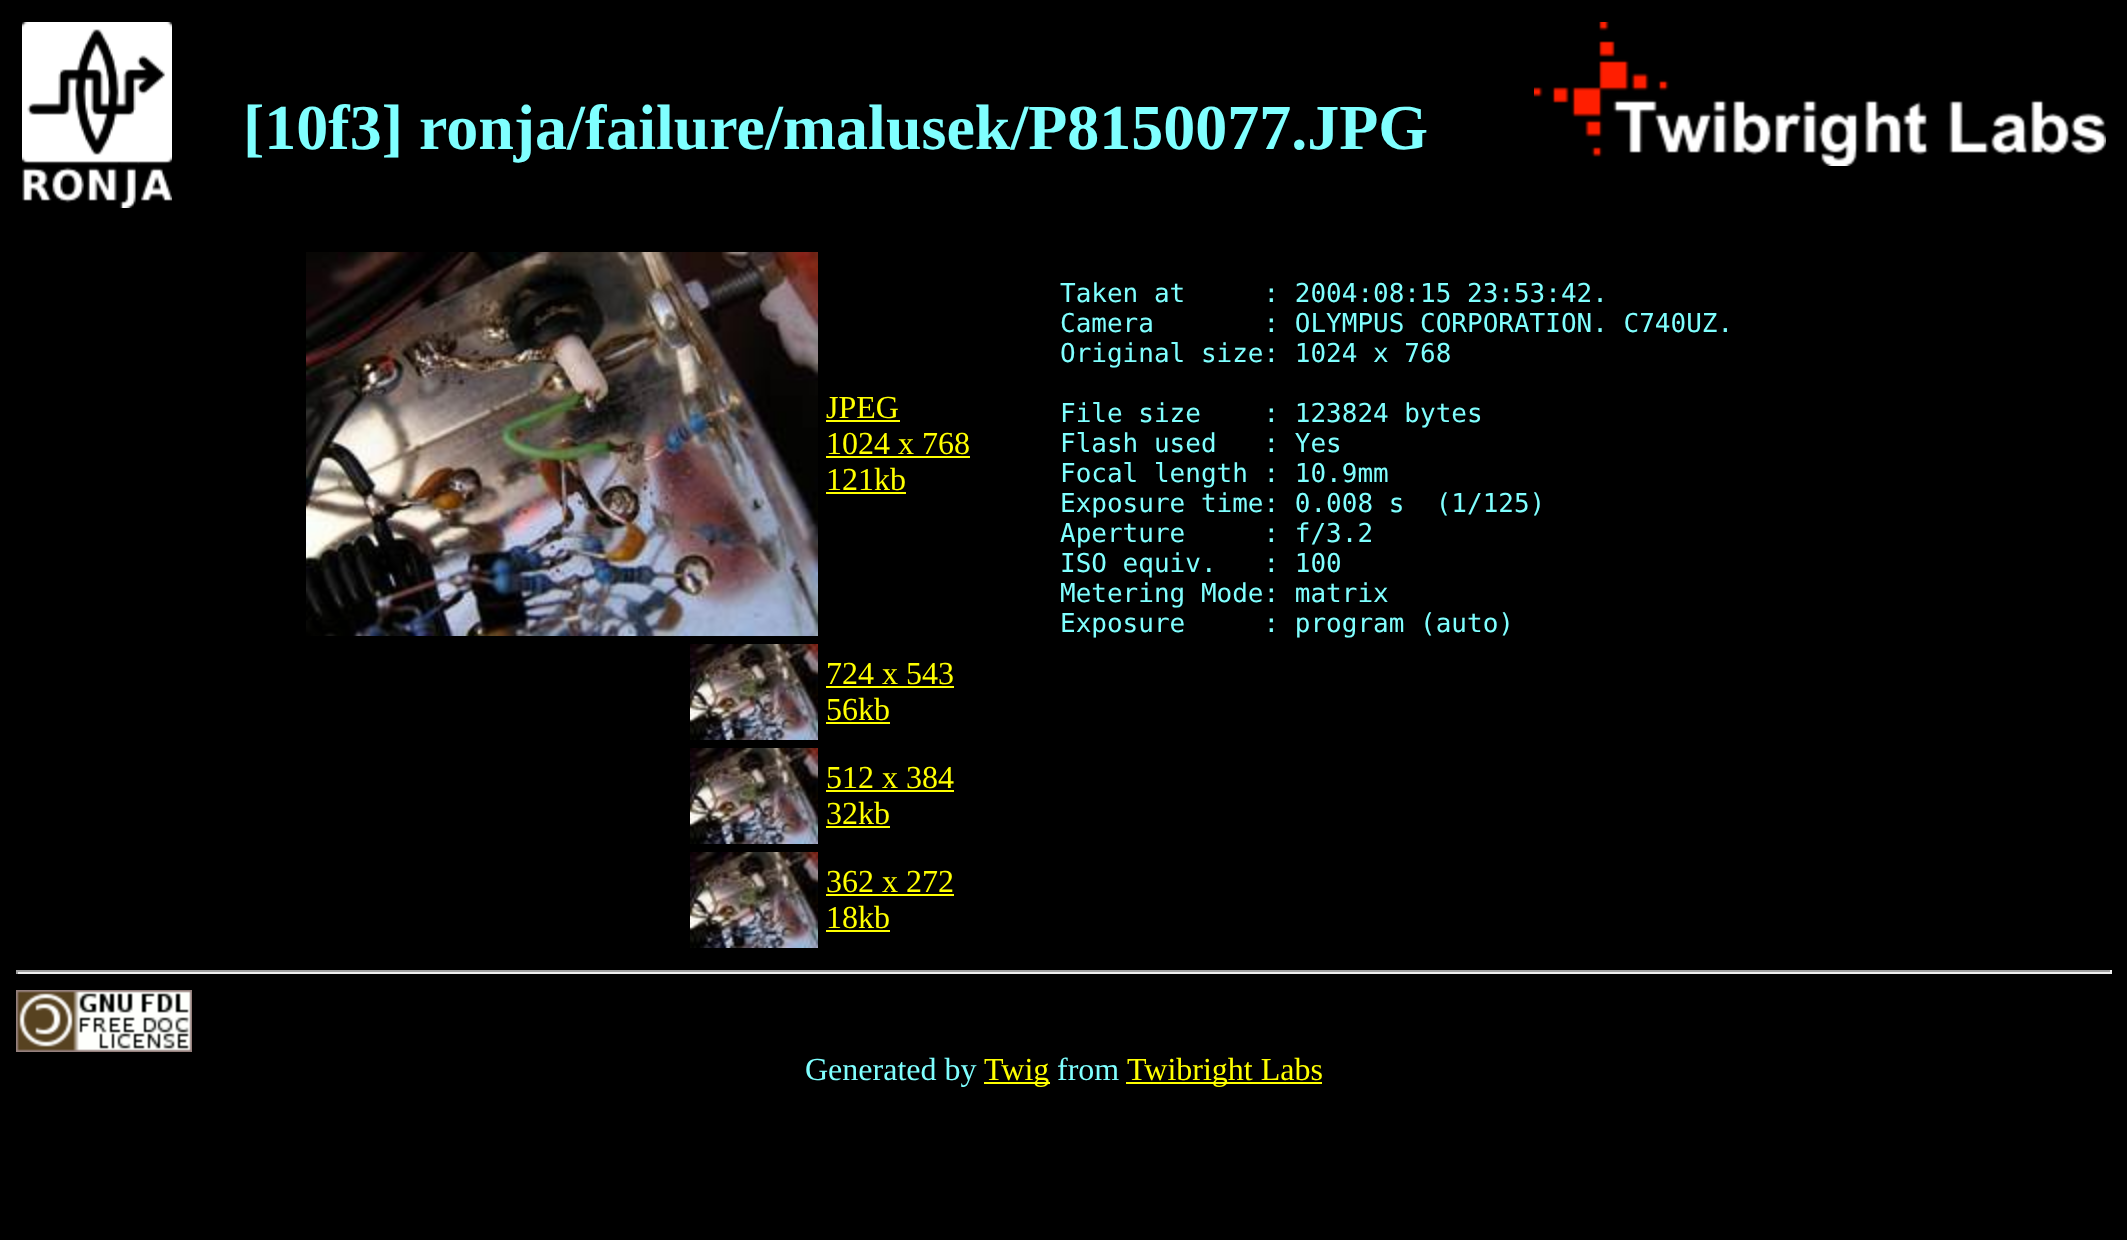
async function draw(canvas) {
  canvas.width = 2127
  canvas.height = 1240
  const ctx = canvas.getContext('2d')
  ctx.miterLimit = 4
  ctx.fontKerning = 'normal'
  async function loadImage(src) {
    const img = new Image()
    img.src = src
    await img.decode()
    return img
  }

  ctx.fillStyle = '#000'
  ctx.fillRect(0, 0, 2127, 1240)
  ctx.drawImage(await loadImage('image0.png'), 22, 22, 150, 186)
  ctx.font = 'bold 64px Liberation Serif'
  ctx.fillStyle = '#7fffff'
  ctx.fillText('[10f3] ronja/failure/malusek/P8150077.JPG', 243, 149)
  ctx.drawImage(await loadImage('image1.png'), 1534, 22, 572, 144)
  ctx.drawImage(await loadImage('image2.png'), 306, 252, 512, 384)
  ctx.font = '32px Liberation Serif'
  ctx.fillStyle = '#ff0'
  ctx.fillText('JPEG', 826, 418)
  ctx.fillRect(826, 420, 74, 2)
  ctx.fillText('1024 x 768', 826, 454)
  ctx.fillRect(826, 456, 144, 2)
  ctx.fillText('121kb', 826, 490)
  ctx.fillRect(826, 492, 80, 2)
  ctx.font = '26px DejaVu Sans Mono'
  ctx.fillStyle = '#7fffff'
  ctx.fillText('Taken at     : 2004:08:15 23:53:42.', 1060, 302)
  ctx.fillText('Camera       : OLYMPUS CORPORATION. C740UZ.', 1060, 332)
  ctx.fillText('Original size: 1024 x 768', 1060, 362)
  ctx.fillText('File size    : 123824 bytes', 1060, 422)
  ctx.fillText('Flash used   : Yes', 1060, 452)
  ctx.fillText('Focal length : 10.9mm', 1060, 482)
  ctx.fillText('Exposure time: 0.008 s  (1/125)', 1060, 512)
  ctx.fillText('Aperture     : f/3.2', 1060, 542)
  ctx.fillText('ISO equiv.   : 100', 1060, 572)
  ctx.fillText('Metering Mode: matrix', 1060, 602)
  ctx.fillText('Exposure     : program (auto)', 1060, 632)
  ctx.drawImage(await loadImage('image3.png'), 690, 644, 128, 96)
  ctx.font = '32px Liberation Serif'
  ctx.fillStyle = '#ff0'
  ctx.fillText('724 x 543', 826, 684)
  ctx.fillRect(826, 686, 128, 2)
  ctx.fillText('56kb', 826, 720)
  ctx.fillRect(826, 722, 64, 2)
  ctx.drawImage(await loadImage('image3.png'), 690, 748, 128, 96)
  ctx.fillText('512 x 384', 826, 788)
  ctx.fillRect(826, 790, 128, 2)
  ctx.fillText('32kb', 826, 824)
  ctx.fillRect(826, 826, 64, 2)
  ctx.drawImage(await loadImage('image3.png'), 690, 852, 128, 96)
  ctx.fillText('362 x 272', 826, 892)
  ctx.fillRect(826, 894, 128, 2)
  ctx.fillText('18kb', 826, 928)
  ctx.fillRect(826, 930, 64, 2)
  ctx.fillStyle = '#9f9f9f'
  ctx.fillRect(16, 970, 2096, 2)
  ctx.fillStyle = '#eee'
  ctx.fillRect(2110, 970, 2, 4)
  ctx.fillRect(16, 972, 2096, 2)
  ctx.fillStyle = '#9f9f9f'
  ctx.fillRect(16, 970, 2, 4)
  ctx.drawImage(await loadImage('image4.png'), 16, 990, 176, 62)
  ctx.fillStyle = '#7fffff'
  ctx.fillText('Generated by', 805, 1080)
  ctx.fillStyle = '#ff0'
  ctx.fillRect(984, 1082, 66, 2)
  ctx.fillText('Twig', 984, 1080)
  ctx.fillStyle = '#7fffff'
  ctx.fillText('from', 1057, 1080)
  ctx.fillStyle = '#ff0'
  ctx.fillRect(1126, 1082, 196, 2)
  ctx.fillText('Twibright Labs', 1127, 1080)
}

draw(document.querySelector('canvas'))
